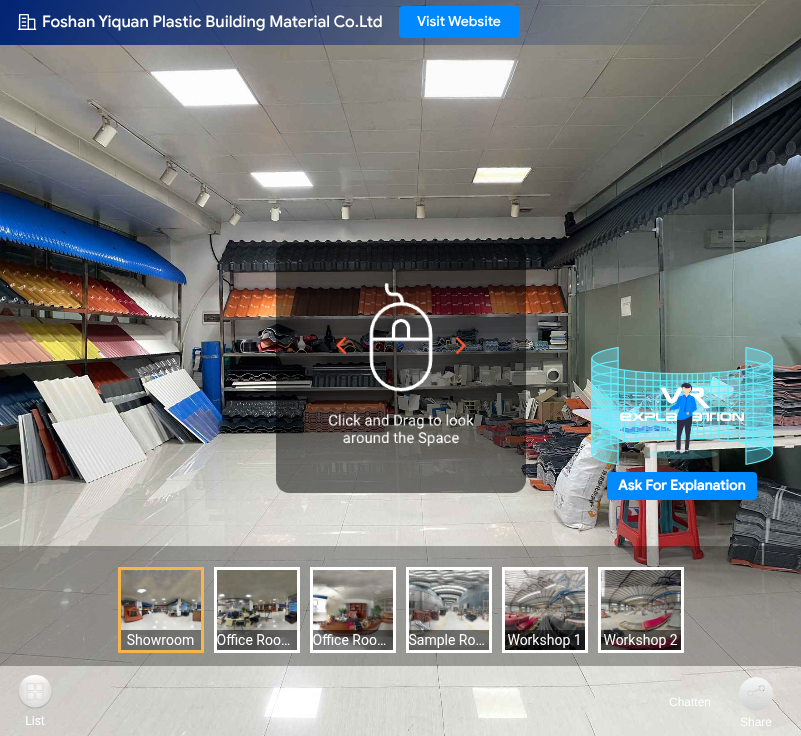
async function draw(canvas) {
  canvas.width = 801
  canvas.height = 736
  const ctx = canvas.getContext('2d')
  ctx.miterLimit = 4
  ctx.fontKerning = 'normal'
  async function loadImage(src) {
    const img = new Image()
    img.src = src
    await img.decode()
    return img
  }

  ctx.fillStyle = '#fff'
  ctx.fillRect(0, 0, 801, 736)
  ctx.drawImage(await loadImage('image0.png'), 0, 0, 801, 736)
  ctx.drawImage(await loadImage('image1.png'), 18, 14, 19, 16)
  ctx.font = '500 16px Google Sans'
  ctx.fillText('Foshan Yiquan Plastic Building Material Co.Ltd', 42, 27)
  ctx.fillStyle = '#0089ff'
  ctx.beginPath()
  ctx.roundRect(399, 6, 120, 32, 4)
  ctx.fill()
  ctx.font = '500 14px Google Sans'
  ctx.fillStyle = '#fff'
  ctx.fillText('Visit Website', 417, 26)
  ctx.drawImage(await loadImage('image2.png'), 591, 346, 182, 119)
  ctx.fillStyle = '#008aff'
  ctx.beginPath()
  ctx.roundRect(607, 472, 150, 28, 4)
  ctx.fill()
  ctx.font = 'bold 14px Google Sans'
  ctx.fillStyle = '#fff'
  ctx.fillText('Ask For Explanation', 618, 490)
  ctx.font = '12px Liberation Sans'
  ctx.fillText('Chatten', 669, 706)
  ctx.drawImage(await loadImage('image3.png'), 739, 677, 34, 34)
  ctx.fillText('Share', 740, 726)
}

draw(document.querySelector('canvas'))
